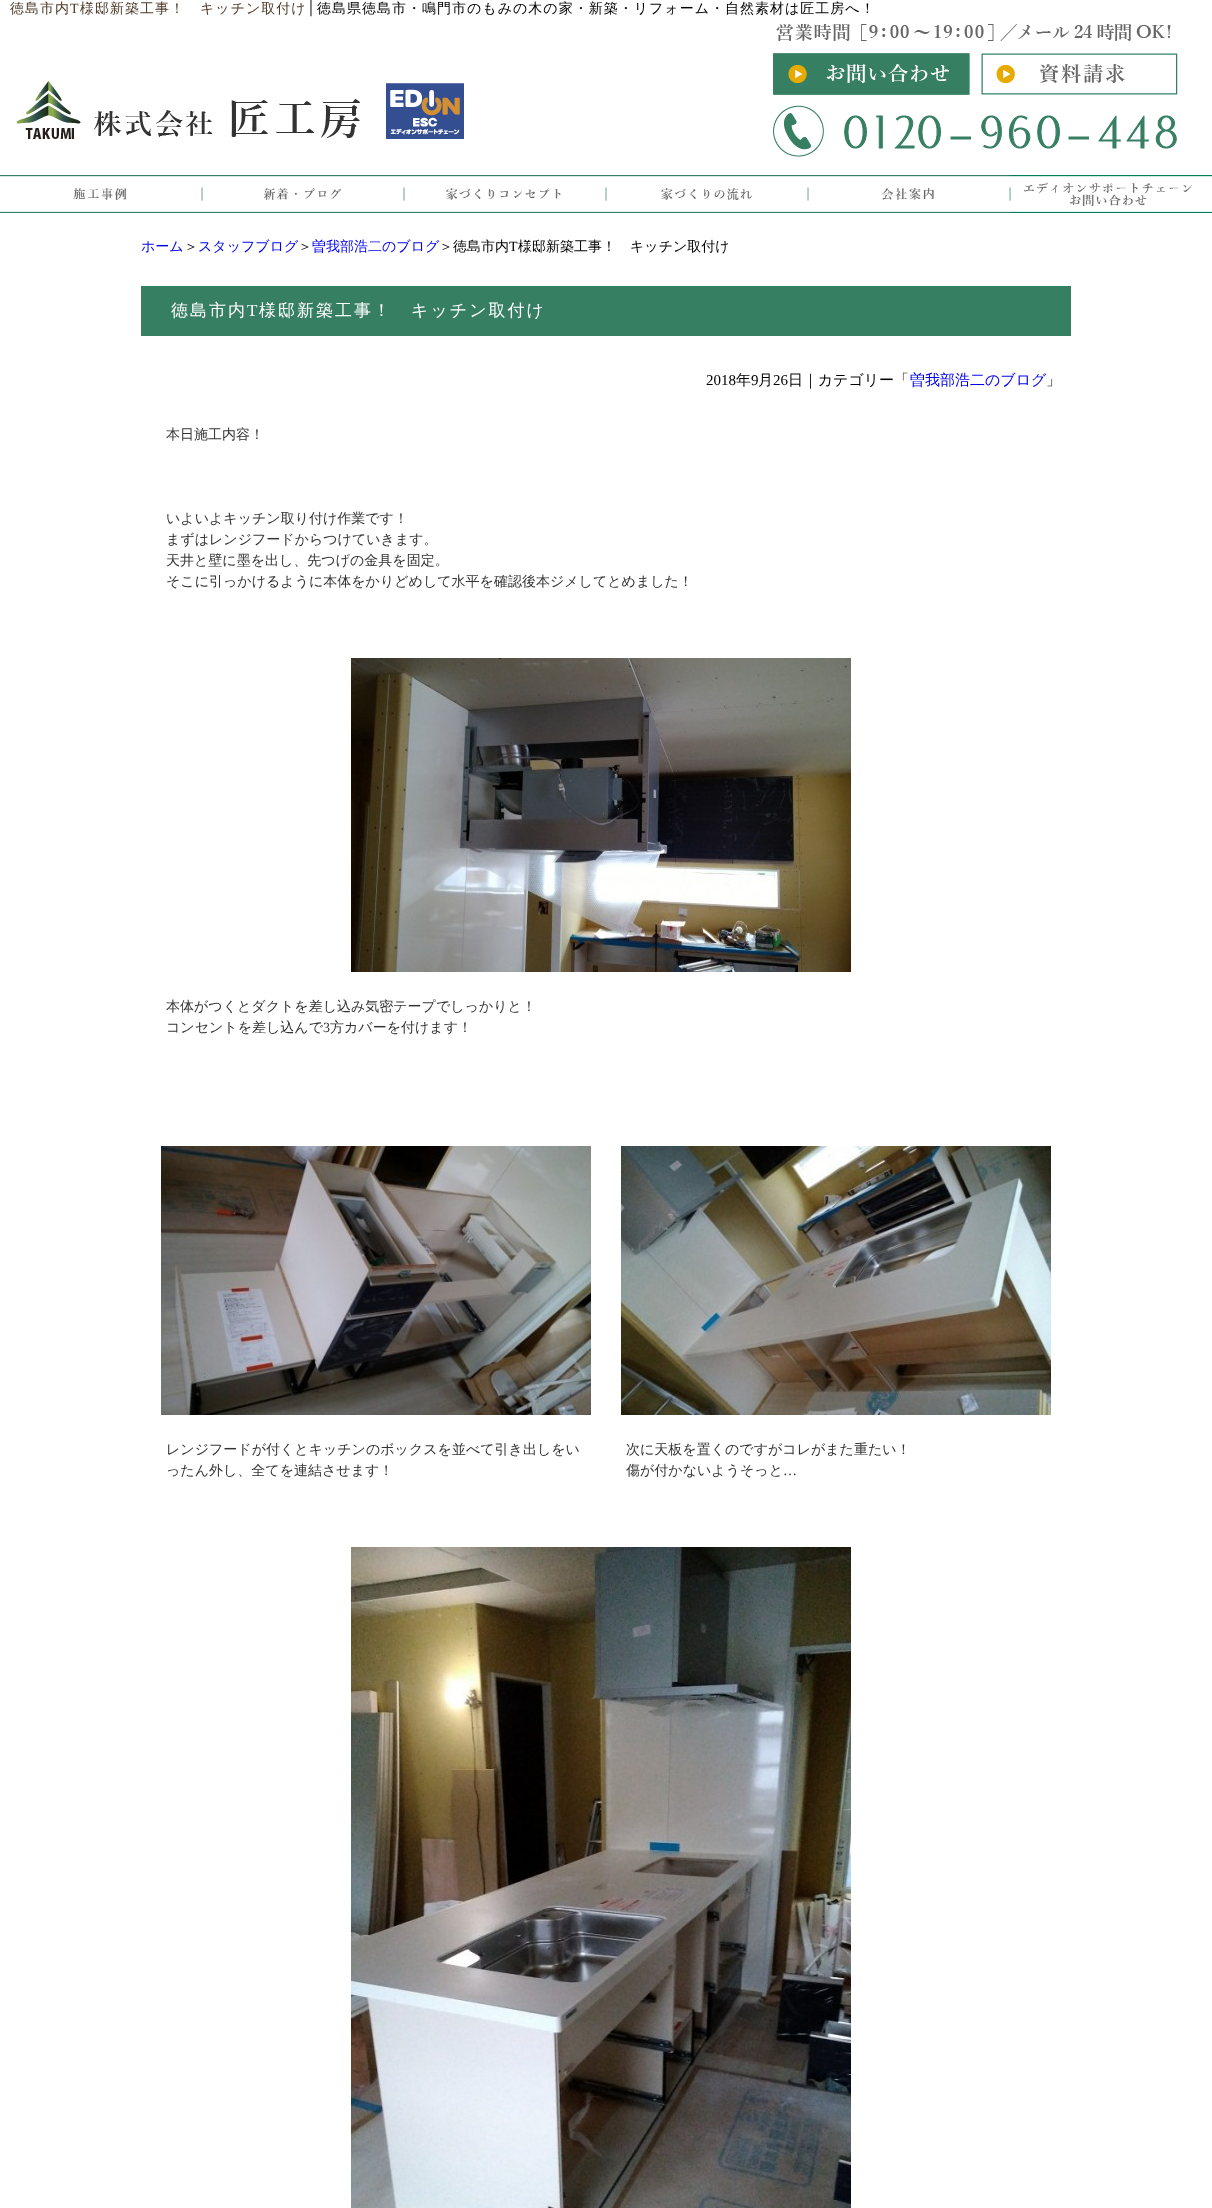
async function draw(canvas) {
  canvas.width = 1212
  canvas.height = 2208
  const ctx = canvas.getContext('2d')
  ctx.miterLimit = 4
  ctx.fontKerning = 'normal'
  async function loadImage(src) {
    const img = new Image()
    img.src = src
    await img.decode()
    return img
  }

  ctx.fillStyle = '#fff'
  ctx.fillRect(0, 0, 1212, 2208)
  ctx.letterSpacing = '1px'
  ctx.font = '500 14px WenQuanYi Zen Hei'
  ctx.fillStyle = '#4c3a2a'
  ctx.fillText('徳島市内', 10, 13)
  ctx.font = '14px Liberation Serif'
  ctx.fillText('T', 70, 13)
  ctx.font = '500 14px WenQuanYi Zen Hei'
  ctx.fillText('様邸新築工事！　キッチン取付け', 80, 13)
  ctx.font = '14px Liberation Serif'
  ctx.fillStyle = '#000'
  ctx.fillText('│', 306, 12)
  ctx.font = '500 14px WenQuanYi Zen Hei'
  ctx.fillText('徳島県徳島市・鳴門市のもみの木の家・新築・リフォーム・自然素材は匠工房へ！', 317, 13)
  ctx.drawImage(await loadImage('image0.png'), 16, 81, 448, 58)
  ctx.drawImage(await loadImage('image1.png'), 773, 23, 405, 134)
  ctx.drawImage(await loadImage('image2.png'), 0, 175, 202, 38)
  ctx.drawImage(await loadImage('image3.png'), 202, 175, 202, 38)
  ctx.drawImage(await loadImage('image4.png'), 404, 175, 202, 38)
  ctx.drawImage(await loadImage('image5.png'), 606, 175, 202, 38)
  ctx.drawImage(await loadImage('image6.png'), 808, 175, 202, 38)
  ctx.drawImage(await loadImage('image7.png'), 1010, 175, 202, 38)
  ctx.letterSpacing = '0px'
  ctx.fillStyle = '#00e'
  ctx.fillText('ホーム', 141, 251)
  ctx.fillStyle = '#000'
  ctx.fillText('＞', 184, 251)
  ctx.fillStyle = '#00e'
  ctx.fillText('スタッフブログ', 198, 251)
  ctx.fillStyle = '#000'
  ctx.fillText('＞', 298, 251)
  ctx.fillStyle = '#00e'
  ctx.fillText('曽我部浩二のブログ', 312, 251)
  ctx.fillStyle = '#000'
  ctx.fillText('＞徳島市内', 439, 251)
  ctx.font = '14px Liberation Serif'
  ctx.fillText('T', 509, 251)
  ctx.font = '500 14px WenQuanYi Zen Hei'
  ctx.fillText('様邸新築工事！　キッチン取付け', 518, 251)
  ctx.fillStyle = '#377f63'
  ctx.fillRect(141, 286, 930, 50)
  ctx.letterSpacing = '2px'
  ctx.font = '500 17px WenQuanYi Zen Hei'
  ctx.fillStyle = '#fff'
  ctx.fillText('徳島市内', 171, 316)
  ctx.font = '17px Liberation Serif'
  ctx.fillText('T', 247, 316)
  ctx.font = '500 17px WenQuanYi Zen Hei'
  ctx.fillText('様邸新築工事！　キッチン取付け', 259, 316)
  ctx.letterSpacing = '0px'
  ctx.font = '15px Liberation Serif'
  ctx.fillStyle = '#000'
  ctx.fillText('2018', 706, 385)
  ctx.font = '500 15px WenQuanYi Zen Hei'
  ctx.fillText('年', 736, 385)
  ctx.font = '15px Liberation Serif'
  ctx.fillText('9', 751, 385)
  ctx.font = '500 15px WenQuanYi Zen Hei'
  ctx.fillText('月', 758, 385)
  ctx.font = '15px Liberation Serif'
  ctx.fillText('26', 773, 385)
  ctx.font = '500 15px WenQuanYi Zen Hei'
  ctx.fillText('日｜カテゴリー「', 788, 385)
  ctx.fillStyle = '#00e'
  ctx.fillText('曽我部浩二のブログ', 910, 385)
  ctx.fillStyle = '#000'
  ctx.fillText('」', 1046, 385)
  ctx.font = '500 14px WenQuanYi Zen Hei'
  ctx.fillStyle = '#333'
  ctx.fillText('本日施工内容！', 166, 439)
  ctx.fillText('いよいよキッチン取り付け作業です！', 166, 523)
  ctx.fillText('まずはレンジフードからつけていきます。', 166, 544)
  ctx.fillText('天井と壁に墨を出し、先つげの金具を固定。', 166, 565)
  ctx.fillText('そこに引っかけるように本体をかりどめして水平を確認後本ジメしてとめました！', 166, 586)
  ctx.drawImage(await loadImage('image8.png'), 351, 658, 500, 314)
  ctx.fillText('本体がつくとダクトを差し込み気密テープでしっかりと！', 166, 1011)
  ctx.fillText('コンセントを差し込んで', 166, 1032)
  ctx.font = '14px Liberation Serif'
  ctx.fillText('3', 323, 1032)
  ctx.font = '500 14px WenQuanYi Zen Hei'
  ctx.fillText('方カバーを付けます！', 330, 1032)
  ctx.drawImage(await loadImage('image9.png'), 161, 1146, 430, 269)
  ctx.fillText('レンジフードが付くとキッチンのボックスを並べて引き出しをい', 166, 1454)
  ctx.fillText('ったん外し、全てを連結させます！', 166, 1475)
  ctx.drawImage(await loadImage('image10.png'), 621, 1146, 430, 269)
  ctx.fillText('次に天板を置くのですがコレがまた重たい！', 626, 1454)
  ctx.fillText('傷が付かないようそっと', 626, 1475)
  ctx.font = '14px Liberation Serif'
  ctx.fillText('…', 783, 1475)
  ctx.drawImage(await loadImage('image11.png'), 351, 1547, 500, 661)
}

draw(document.querySelector('canvas'))
